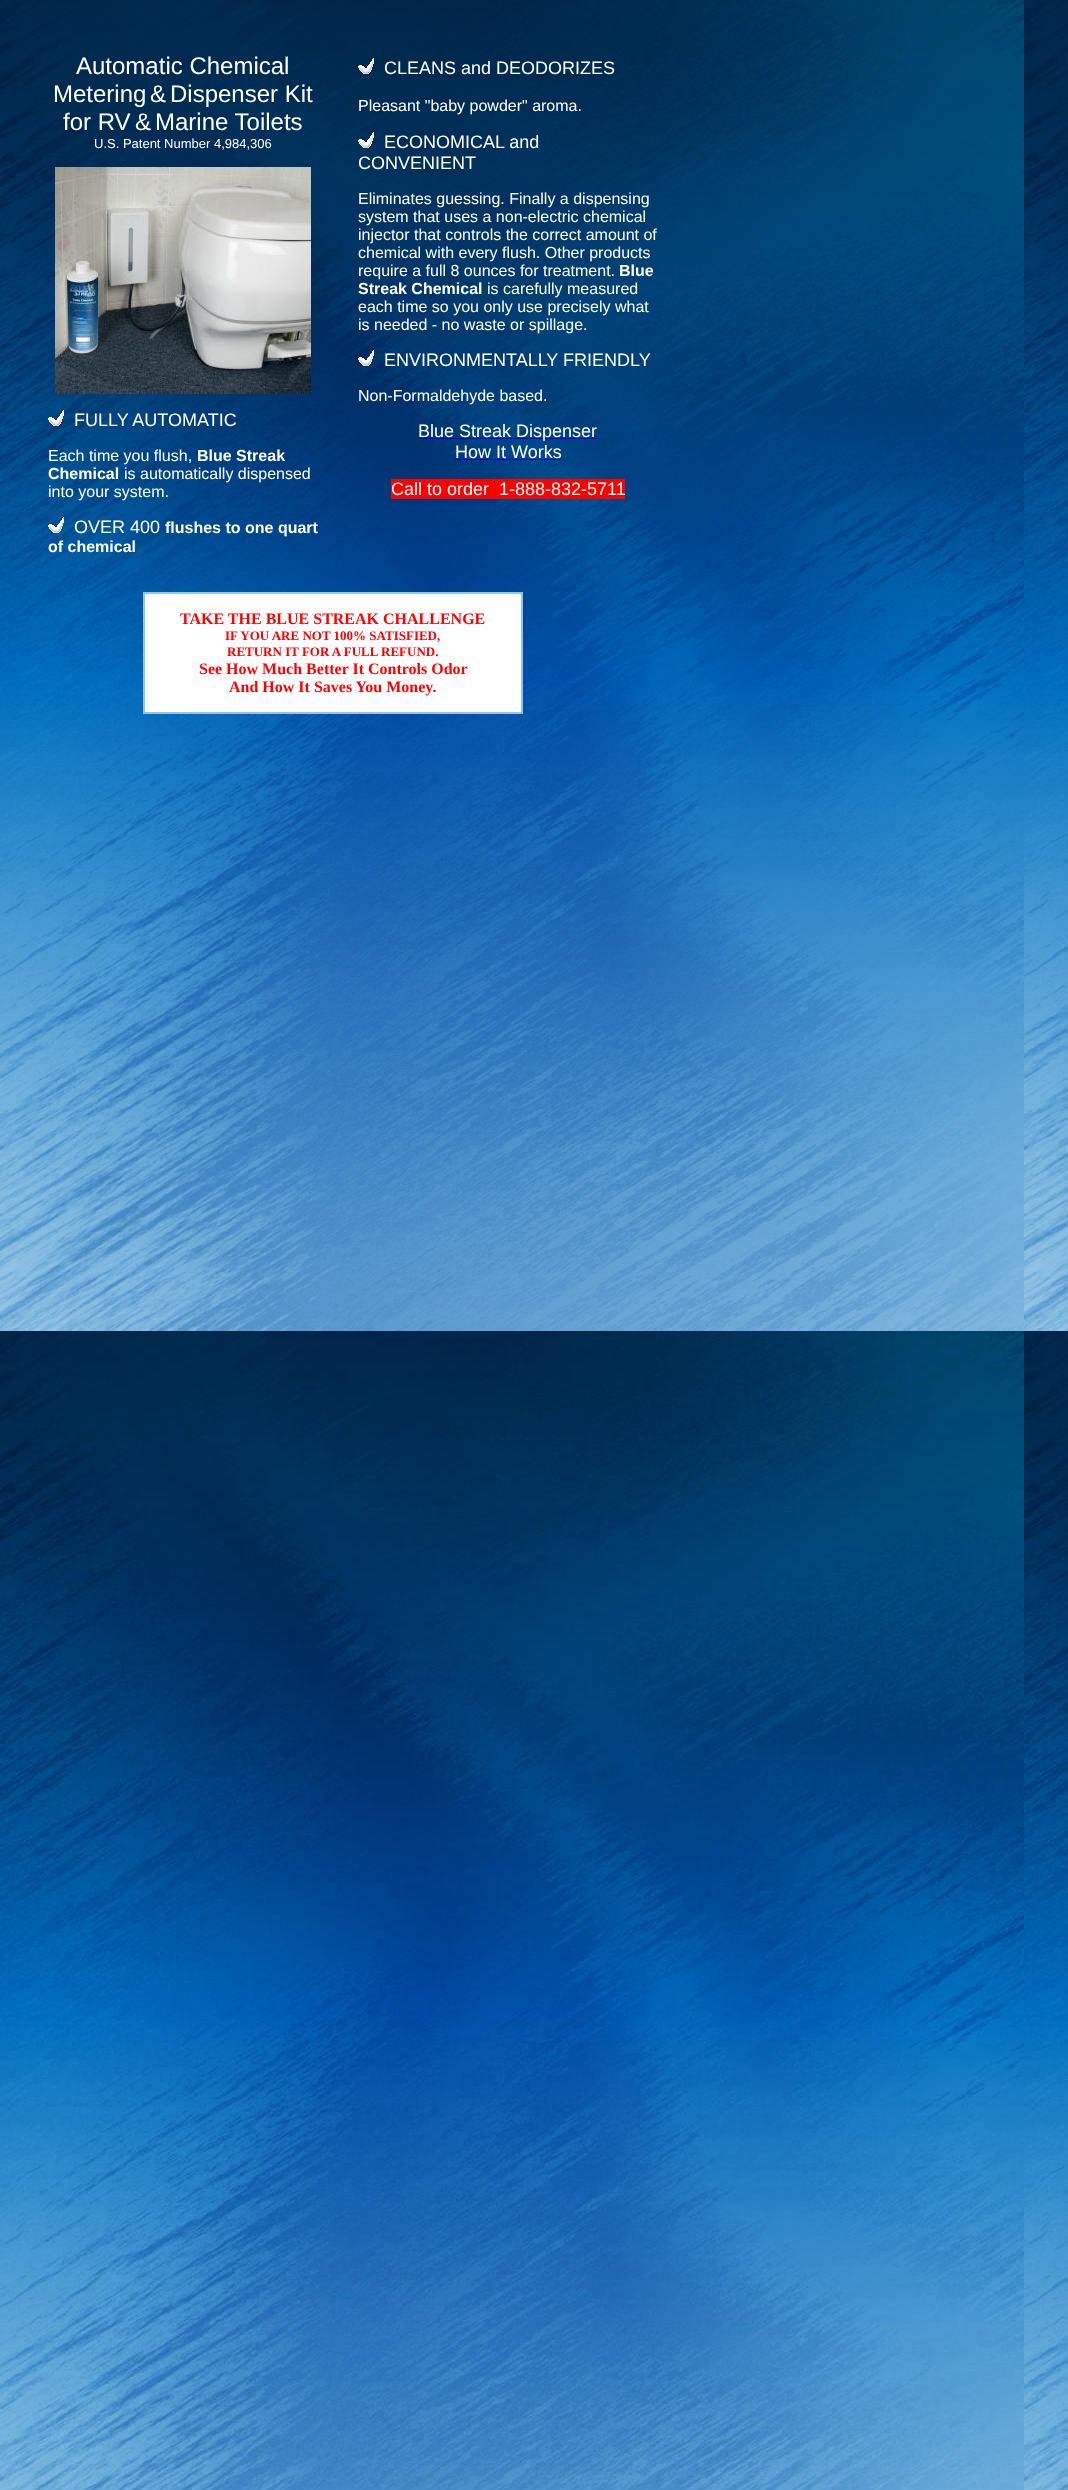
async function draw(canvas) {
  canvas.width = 1068
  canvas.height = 2490
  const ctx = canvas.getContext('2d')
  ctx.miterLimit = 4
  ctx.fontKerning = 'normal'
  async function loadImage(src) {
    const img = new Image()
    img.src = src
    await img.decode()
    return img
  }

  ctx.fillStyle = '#fff'
  ctx.fillRect(0, 0, 1068, 2490)
  ctx.drawImage(await loadImage('image0.png'), 0, 0, 1068, 2490)
  ctx.font = '24px Liberation Sans'
  ctx.fillText('Automatic Chemical', 76, 74)
  ctx.fillText('Metering', 53, 102)
  ctx.fillText('&', 150, 102)
  ctx.fillText('Dispenser Kit', 170, 102)
  ctx.fillText('for RV', 63, 130)
  ctx.fillText('&', 135, 130)
  ctx.fillText('Marine Toilets', 155, 130)
  ctx.font = '13px Liberation Sans'
  ctx.fillText('U.S. Patent Number 4,984,306', 94, 148)
  ctx.drawImage(await loadImage('image1.png'), 55, 167, 256, 227)
  ctx.drawImage(await loadImage('image2.png'), 48, 410, 16, 16)
  ctx.font = '18px Liberation Sans'
  ctx.fillText('FULLY AUTOMATIC', 74, 426)
  ctx.font = '16px Liberation Sans'
  ctx.fillText('Each time you flush,', 48, 461)
  ctx.font = 'bold 16px Liberation Sans'
  ctx.fillText('Blue Streak', 197, 461)
  ctx.fillText('Chemical', 48, 479)
  ctx.font = '16px Liberation Sans'
  ctx.fillText('is automatically dispensed', 124, 479)
  ctx.fillText('into your system.', 48, 497)
  ctx.drawImage(await loadImage('image3.png'), 48, 517, 16, 16)
  ctx.font = '18px Liberation Sans'
  ctx.fillText('OVER 400', 74, 533)
  ctx.font = 'bold 16px Liberation Sans'
  ctx.fillText('flushes to one quart', 165, 533)
  ctx.fillText('of chemical', 48, 552)
  ctx.drawImage(await loadImage('image4.png'), 358, 58, 16, 16)
  ctx.font = '18px Liberation Sans'
  ctx.fillText('CLEANS and DEODORIZES', 384, 74)
  ctx.font = '16px Liberation Sans'
  ctx.fillText('Pleasant "baby powder" aroma.', 358, 111)
  ctx.drawImage(await loadImage('image5.png'), 358, 132, 16, 16)
  ctx.font = '18px Liberation Sans'
  ctx.fillText('ECONOMICAL and', 384, 148)
  ctx.fillText('CONVENIENT', 358, 169)
  ctx.font = '16px Liberation Sans'
  ctx.fillText('Eliminates guessing. Finally a dispensing', 358, 204)
  ctx.fillText('system that uses a non-electric chemical', 358, 222)
  ctx.fillText('injector that controls the correct amount of', 358, 240)
  ctx.fillText('chemical with every flush. Other products', 358, 258)
  ctx.fillText('require a full 8 ounces for treatment.', 358, 276)
  ctx.font = 'bold 16px Liberation Sans'
  ctx.fillText('Blue', 619, 276)
  ctx.fillText('Streak Chemical', 358, 294)
  ctx.font = '16px Liberation Sans'
  ctx.fillText('is carefully measured', 487, 294)
  ctx.fillText('each time so you only use precisely what', 358, 312)
  ctx.fillText('is needed - no waste or spillage.', 358, 330)
  ctx.drawImage(await loadImage('image6.png'), 358, 350, 16, 16)
  ctx.font = '18px Liberation Sans'
  ctx.fillText('ENVIRONMENTALLY FRIENDLY', 384, 366)
  ctx.font = '16px Liberation Sans'
  ctx.fillText('Non-Formaldehyde based.', 358, 401)
  ctx.fillStyle = '#00e'
  ctx.fillRect(418, 438, 180, 1)
  ctx.font = '18px Liberation Sans'
  ctx.fillStyle = '#fff'
  ctx.fillText('Blue Streak Dispenser', 418, 437)
  ctx.fillText('How It Works', 455, 458)
  ctx.fillStyle = '#00e'
  ctx.fillRect(455, 459, 106, 1)
  ctx.fillStyle = '#f00'
  ctx.fillRect(391, 479, 234, 20)
  ctx.fillStyle = '#fff'
  ctx.fillText('Call to order  1-888-832-5711', 391, 495)
  ctx.strokeStyle = '#8ec6ee'
  ctx.strokeRect(143.5, 592.5, 379, 121)
  ctx.beginPath()
  ctx.rect(144.5, 593.5, 377, 119)
  ctx.fill()
  ctx.stroke()
  ctx.font = 'bold 16px Liberation Serif'
  ctx.fillStyle = '#f00'
  ctx.fillText('TAKE THE BLUE STREAK CHALLENGE', 180, 624)
  ctx.font = 'bold 13px Liberation Serif'
  ctx.fillText('IF YOU ARE NOT 100% SATISFIED,', 225, 640)
  ctx.fillText('RETURN IT FOR A FULL REFUND.', 227, 656)
  ctx.font = 'bold 16px Liberation Serif'
  ctx.fillText('See How Much Better It Controls Odor', 199, 674)
  ctx.fillText('And How It Saves You Money.', 229, 692)
}

draw(document.querySelector('canvas'))
